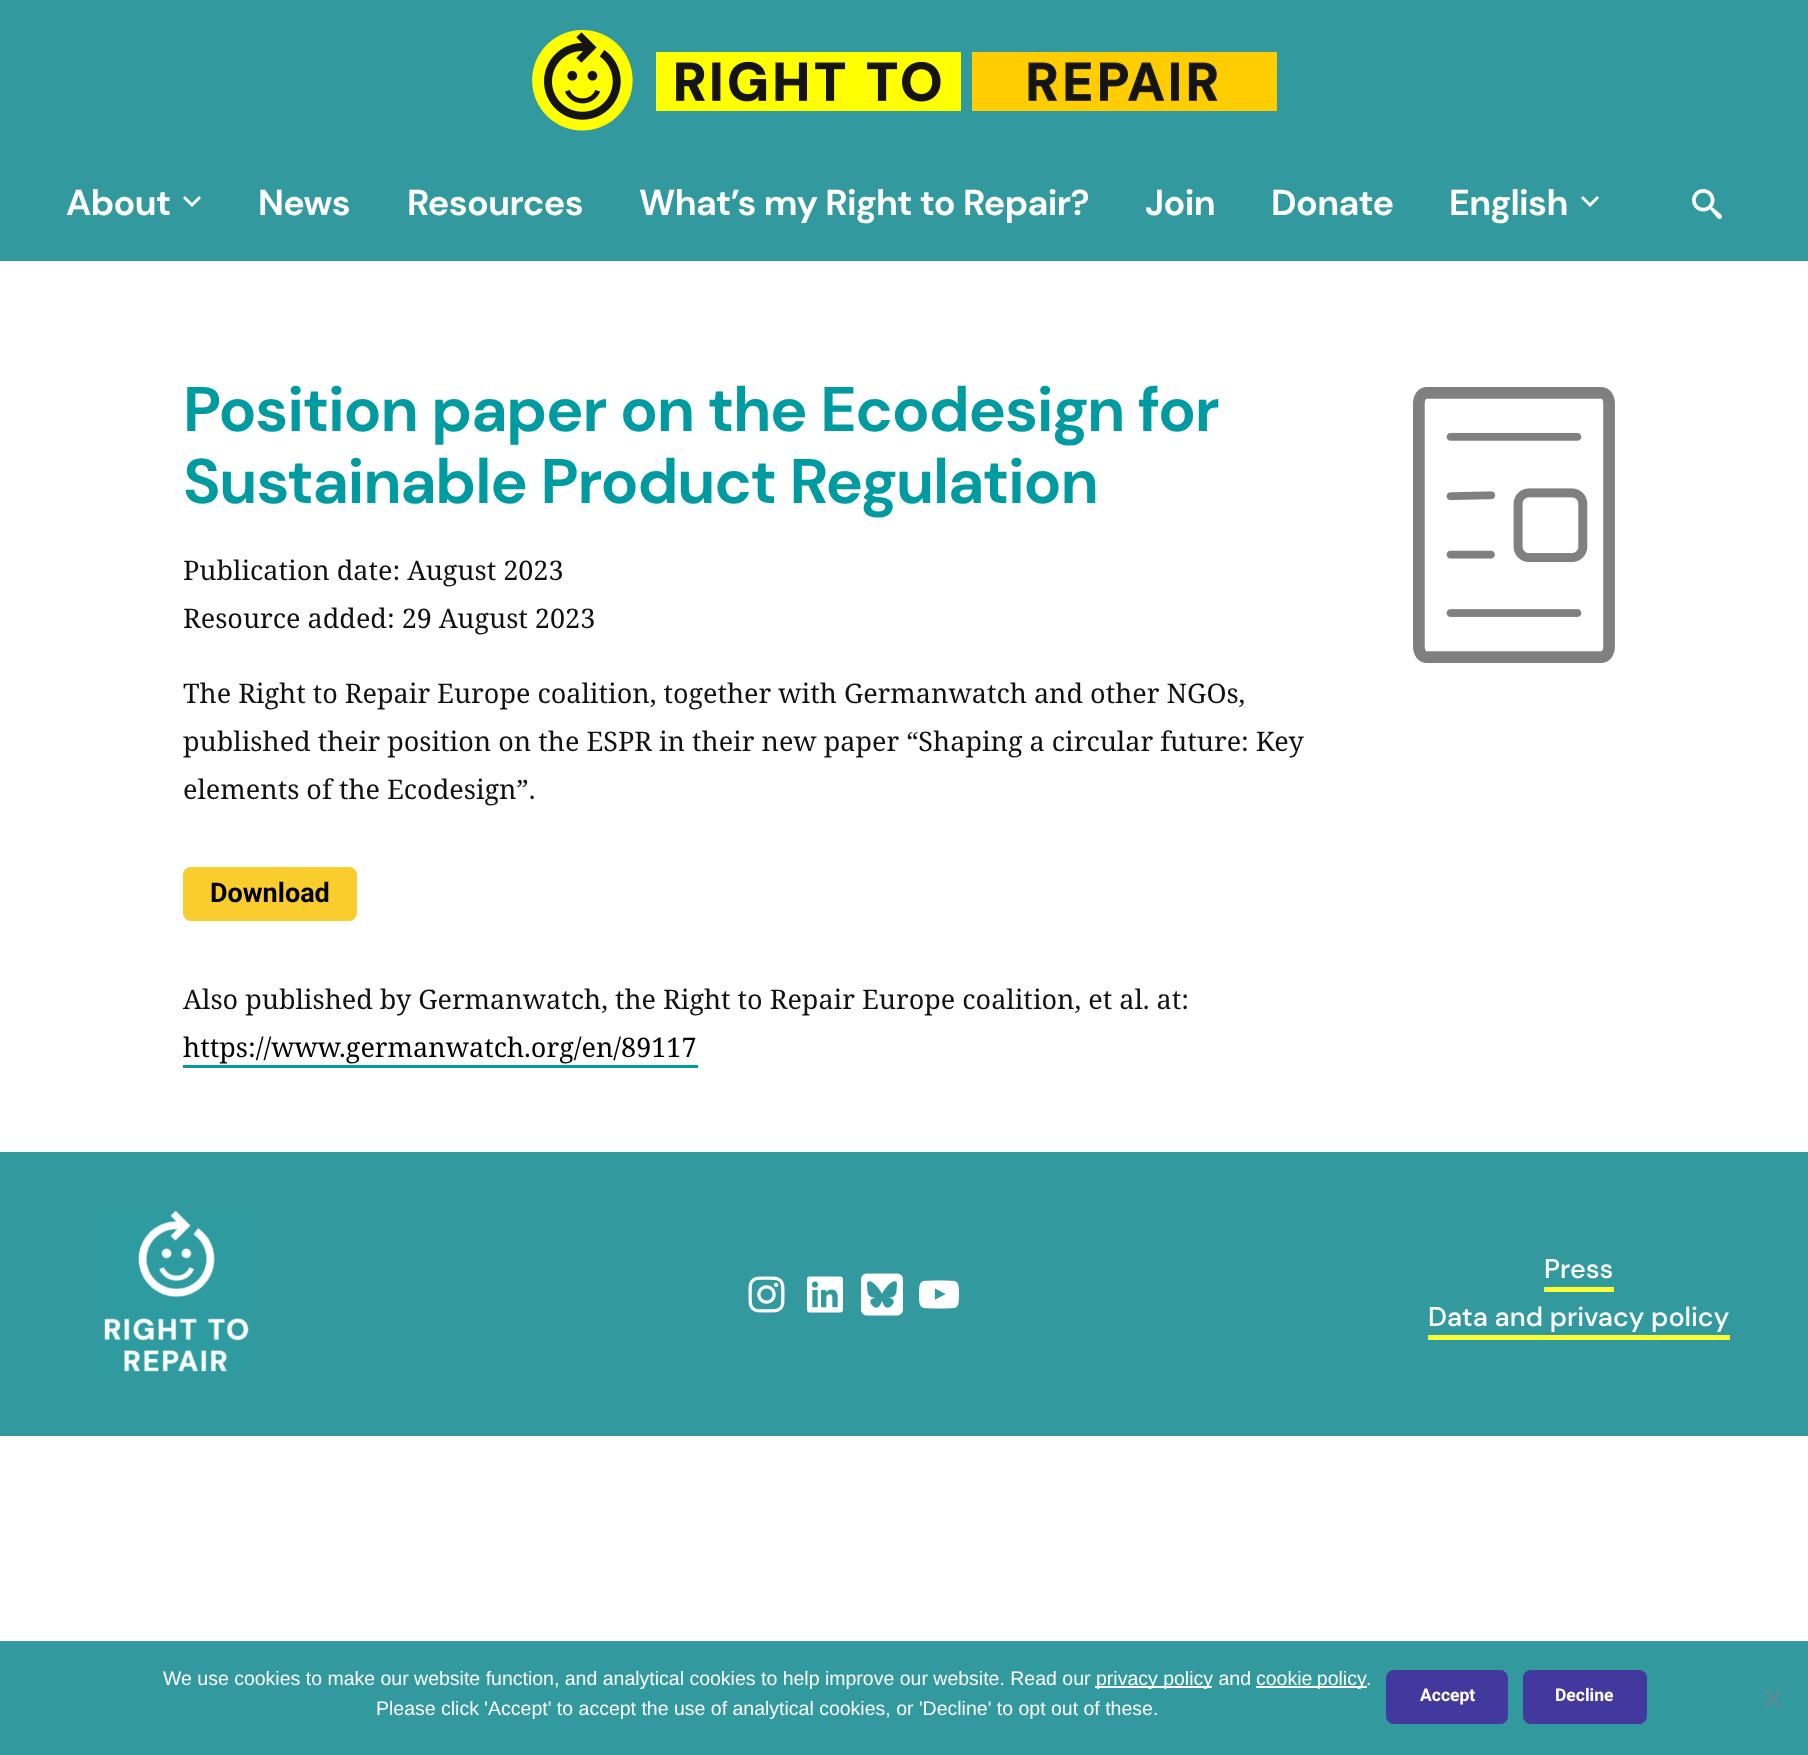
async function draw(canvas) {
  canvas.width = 1808
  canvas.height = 1755
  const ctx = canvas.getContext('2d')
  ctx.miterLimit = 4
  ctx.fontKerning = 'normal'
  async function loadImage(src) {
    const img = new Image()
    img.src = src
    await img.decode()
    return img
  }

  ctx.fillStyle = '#fff'
  ctx.fillRect(0, 0, 1808, 1755)
  ctx.fillStyle = '#329a9f'
  ctx.fillRect(0, 0, 1808, 261)
  ctx.drawImage(await loadImage('image0.png'), 532, 30, 745, 101)
  ctx.letterSpacing = '-0.6px'
  ctx.font = 'bold 36px DM Sans'
  ctx.fillStyle = '#fff'
  ctx.fillText('About', 66, 215)
  ctx.beginPath()
  ctx.moveTo(185, 196)
  ctx.lineTo(192, 203)
  ctx.lineTo(199, 196)
  ctx.lineTo(201, 198)
  ctx.lineTo(192, 207)
  ctx.lineTo(183, 198)
  ctx.closePath()
  ctx.fill()
  ctx.fillText('News', 258, 215)
  ctx.fillText('Resources', 407, 215)
  ctx.fillText('What’s my Right to Repair?', 639, 215)
  ctx.fillText('Join', 1145, 215)
  ctx.fillText('Donate', 1271, 215)
  ctx.fillText('English', 1449, 215)
  ctx.beginPath()
  ctx.moveTo(1583, 196)
  ctx.lineTo(1590, 203)
  ctx.lineTo(1597, 196)
  ctx.lineTo(1599, 198)
  ctx.lineTo(1590, 207)
  ctx.lineTo(1581, 198)
  ctx.closePath()
  ctx.fill()
  ctx.drawImage(await loadImage('image1.png'), 1692, 189, 30, 30)
  ctx.drawImage(await loadImage('image2.png'), 1413, 387, 202, 276)
  ctx.letterSpacing = '-1.25px'
  ctx.font = 'bold 63px DM Sans'
  ctx.fillStyle = '#009ba0'
  ctx.fillText('Position paper on the Ecodesign for', 183, 431)
  ctx.fillText('Sustainable Product Regulation', 183, 503)
  ctx.letterSpacing = '0px'
  ctx.font = '27px Noto Serif'
  ctx.fillStyle = '#111'
  ctx.fillText('Publication date: August 2023', 183, 580)
  ctx.fillText('Resource added: 29 August 2023', 183, 628)
  ctx.fillText('The Right to Repair Europe coalition, together with Germanwatch and other NGOs,', 183, 703)
  ctx.fillText('published their position on the ESPR in their new paper “Shaping a circular future: Key', 183, 751)
  ctx.fillText('elements of the Ecodesign”.', 183, 799)
  ctx.fillStyle = '#f9cd2d'
  ctx.beginPath()
  ctx.roundRect(183, 867, 174, 54, 8)
  ctx.fill()
  ctx.font = 'bold 27px Roboto'
  ctx.fillStyle = '#000'
  ctx.fillText('Download', 210, 902)
  ctx.font = '27px Noto Serif'
  ctx.fillStyle = '#111'
  ctx.fillText('Also published by Germanwatch, the Right to Repair Europe coalition, et al. at:', 183, 1009)
  ctx.fillStyle = '#000'
  ctx.fillText('https://www.germanwatch.org/en/89117', 183, 1057)
  ctx.fillStyle = '#009ba0'
  ctx.fillRect(183, 1065, 515, 3)
  ctx.fillStyle = '#329a9f'
  ctx.fillRect(0, 1152, 1808, 284)
  ctx.drawImage(await loadImage('image3.png'), 104, 1210, 145, 162)
  ctx.drawImage(await loadImage('image4.png'), 748, 1276, 37, 37)
  ctx.drawImage(await loadImage('image5.png'), 807, 1276, 36, 37)
  ctx.drawImage(await loadImage('image6.png'), 861, 1273, 42, 43)
  ctx.drawImage(await loadImage('image7.png'), 919, 1280, 40, 29)
  ctx.font = '500 27px DM Sans'
  ctx.fillStyle = '#fff'
  ctx.fillText('Press', 1544, 1278)
  ctx.fillStyle = '#fcff34'
  ctx.fillRect(1544, 1287, 70, 5)
  ctx.fillStyle = '#fff'
  ctx.fillText('Data and privacy policy', 1428, 1326)
  ctx.fillStyle = '#fcff34'
  ctx.fillRect(1428, 1335, 302, 5)
  ctx.fillStyle = '#329a9f'
  ctx.fillRect(0, 1641, 1808, 114)
  ctx.font = '19.5px Liberation Sans'
  ctx.fillStyle = '#fff'
  ctx.fillText('We use cookies to make our website function, and analytical cookies to help improve our website. Read our', 163, 1685)
  ctx.fillRect(1095, 1686, 117, 2)
  ctx.fillText('privacy policy and', 1096, 1685)
  ctx.fillRect(1256, 1686, 111, 2)
  ctx.wordSpacing = '-1px'
  ctx.fillText('cookie policy', 1256, 1685)
  ctx.wordSpacing = '0px'
  ctx.fillText('.', 1366, 1685)
  ctx.fillText('Please click \'Accept\' to accept the use of analytical cookies, or \'Decline\' to opt out of these.', 376, 1715)
  ctx.fillStyle = '#42389e'
  ctx.beginPath()
  ctx.roundRect(1386, 1670, 122, 54, 8)
  ctx.fill()
  ctx.font = 'bold 17.5px Roboto'
  ctx.fillStyle = '#fff'
  ctx.fillText('Accept', 1420, 1701)
  ctx.fillStyle = '#42389e'
  ctx.beginPath()
  ctx.roundRect(1523, 1670, 124, 54, 8)
  ctx.fill()
  ctx.fillStyle = '#fff'
  ctx.fillText('Decline', 1555, 1701)
  ctx.fillStyle = '#598d90'
  ctx.beginPath()
  ctx.moveTo(1780, 1689.5)
  ctx.lineTo(1782, 1692)
  ctx.lineTo(1766, 1708)
  ctx.lineTo(1764, 1705.5)
  ctx.closePath()
  ctx.fill()
  ctx.beginPath()
  ctx.moveTo(1764, 1692)
  ctx.lineTo(1766, 1689.5)
  ctx.lineTo(1782, 1705.5)
  ctx.lineTo(1780, 1708)
  ctx.closePath()
  ctx.fill()
}

draw(document.querySelector('canvas'))
